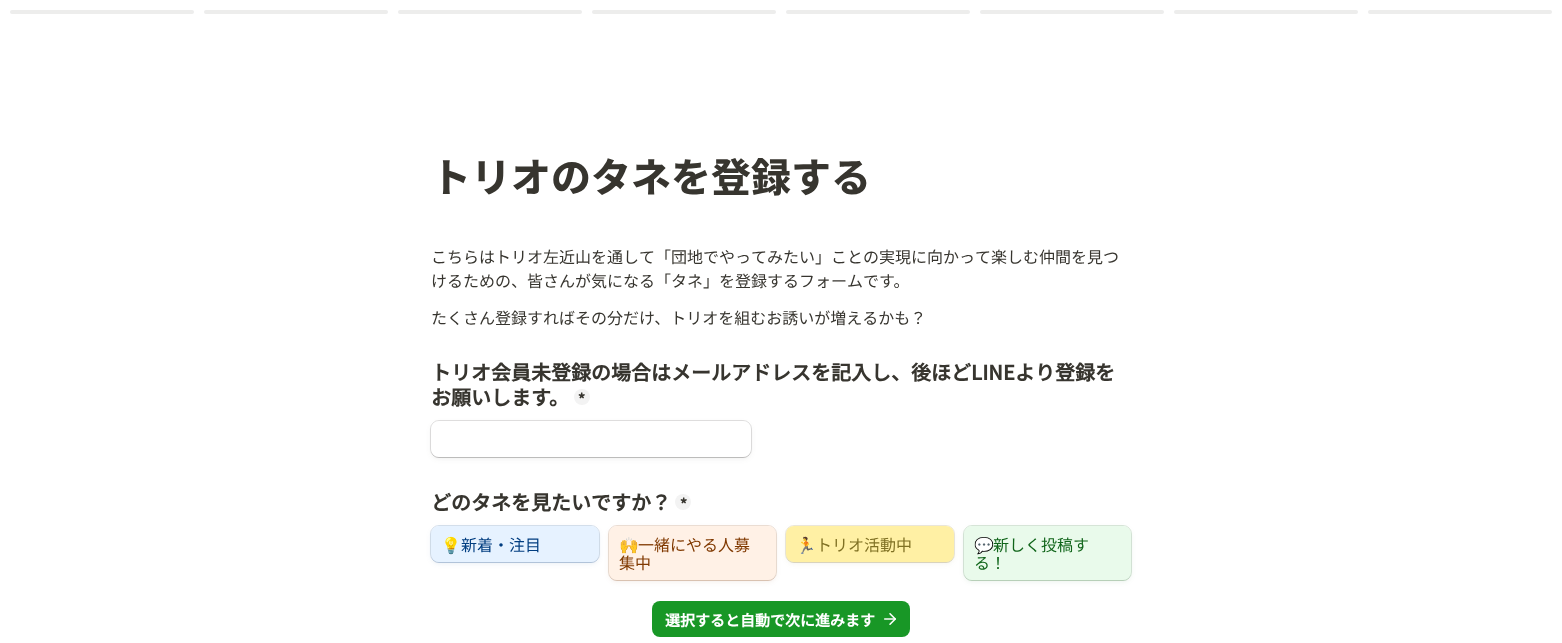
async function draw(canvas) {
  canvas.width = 1562
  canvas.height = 643
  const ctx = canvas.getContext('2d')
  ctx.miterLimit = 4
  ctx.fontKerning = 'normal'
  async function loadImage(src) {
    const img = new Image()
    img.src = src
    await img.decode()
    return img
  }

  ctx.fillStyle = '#fff'
  ctx.fillRect(0, 0, 1562, 643)
  ctx.fillStyle = '#ededec'
  ctx.beginPath()
  ctx.roundRect(10, 10, 184, 4, 2)
  ctx.fill()
  ctx.beginPath()
  ctx.roundRect(204, 10, 184, 4, 2)
  ctx.fill()
  ctx.beginPath()
  ctx.roundRect(398, 10, 184, 4, 2)
  ctx.fill()
  ctx.beginPath()
  ctx.roundRect(592, 10, 184, 4, 2)
  ctx.fill()
  ctx.beginPath()
  ctx.roundRect(786, 10, 184, 4, 2)
  ctx.fill()
  ctx.beginPath()
  ctx.roundRect(980, 10, 184, 4, 2)
  ctx.fill()
  ctx.beginPath()
  ctx.roundRect(1174, 10, 184, 4, 2)
  ctx.fill()
  ctx.beginPath()
  ctx.roundRect(1368, 10, 184, 4, 2)
  ctx.fill()
  ctx.font = '800 40px Noto Sans JP'
  ctx.fillStyle = '#37352f'
  ctx.fillText('トリオのタネを登録する', 431, 192)
  ctx.font = '16px Noto Sans JP'
  ctx.fillText('こちらはトリオ左近山を通して「団地でやってみたい」ことの実現に向かって楽しむ仲間を見つ', 431, 263)
  ctx.fillText('けるための、皆さんが気になる「タネ」を登録するフォームです。', 431, 287)
  ctx.fillText('たくさん登録すればその分だけ、トリオを組むお誘いが増えるかも？', 431, 324)
  ctx.font = 'bold 20px Noto Sans JP'
  ctx.fillText('トリオ会員未登録の場合はメールアドレスを記入し、後ほどLINEより登録を', 431, 380)
  ctx.fillText('お願いします。', 431, 405)
  ctx.fillStyle = '#f3f3f3'
  ctx.beginPath()
  ctx.arc(582, 397, 8, 0, 2 * Math.PI)
  ctx.fill()
  ctx.font = '900 14px Noto Sans JP'
  ctx.fillStyle = '#37352f'
  ctx.fillText('*', 578, 404)
  ctx.save()
  ctx.beginPath()
  ctx.moveTo(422, 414)
  ctx.lineTo(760, 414)
  ctx.lineTo(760, 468)
  ctx.lineTo(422, 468)
  ctx.closePath()
  ctx.moveTo(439, 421)
  ctx.lineTo(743, 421)
  ctx.bezierCurveTo(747.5, 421, 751, 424.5, 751, 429)
  ctx.lineTo(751, 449)
  ctx.bezierCurveTo(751, 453.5, 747.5, 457, 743, 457)
  ctx.lineTo(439, 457)
  ctx.bezierCurveTo(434.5, 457, 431, 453.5, 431, 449)
  ctx.lineTo(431, 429)
  ctx.bezierCurveTo(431, 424.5, 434.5, 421, 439, 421)
  ctx.closePath()
  ctx.clip('evenodd')
  ctx.fillStyle = '#3d3b3514'
  ctx.filter = 'blur(2.5px)'
  ctx.beginPath()
  ctx.roundRect(431, 423, 320, 36, 8)
  ctx.fill()
  ctx.filter = 'none'
  ctx.restore()
  ctx.beginPath()
  ctx.roundRect(430.5, 420.5, 321, 37, 8.5)
  ctx.strokeStyle = '#3d3b3529'
  ctx.stroke()
  ctx.save()
  ctx.beginPath()
  ctx.moveTo(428, 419)
  ctx.lineTo(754, 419)
  ctx.lineTo(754, 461)
  ctx.lineTo(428, 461)
  ctx.closePath()
  ctx.moveTo(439, 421)
  ctx.lineTo(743, 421)
  ctx.bezierCurveTo(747.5, 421, 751, 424.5, 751, 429)
  ctx.lineTo(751, 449)
  ctx.bezierCurveTo(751, 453.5, 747.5, 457, 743, 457)
  ctx.lineTo(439, 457)
  ctx.bezierCurveTo(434.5, 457, 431, 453.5, 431, 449)
  ctx.lineTo(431, 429)
  ctx.bezierCurveTo(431, 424.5, 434.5, 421, 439, 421)
  ctx.closePath()
  ctx.clip('evenodd')
  ctx.fillStyle = '#0000001f'
  ctx.filter = 'blur(0.5px)'
  ctx.beginPath()
  ctx.roundRect(431, 422, 320, 36, 8)
  ctx.fill()
  ctx.filter = 'none'
  ctx.restore()
  ctx.fillStyle = '#ffffff80'
  ctx.beginPath()
  ctx.roundRect(431, 421, 320, 36, 8)
  ctx.fill()
  ctx.font = 'bold 20px Noto Sans JP'
  ctx.fillStyle = '#37352f'
  ctx.fillText('どのタネを見たいですか？', 431, 510)
  ctx.fillStyle = '#f3f3f3'
  ctx.beginPath()
  ctx.arc(683, 502, 8, 0, 2 * Math.PI)
  ctx.fill()
  ctx.font = '900 14px Noto Sans JP'
  ctx.fillStyle = '#37352f'
  ctx.fillText('*', 680, 509)
  ctx.fillStyle = '#003d8014'
  ctx.filter = 'blur(2.5px)'
  ctx.beginPath()
  ctx.roundRect(431, 528, 168, 36, 8)
  ctx.fill()
  ctx.filter = 'none'
  ctx.beginPath()
  ctx.roundRect(430.5, 525.5, 169, 37, 8.5)
  ctx.strokeStyle = '#003d8029'
  ctx.stroke()
  ctx.fillStyle = '#003d801f'
  ctx.filter = 'blur(0.5px)'
  ctx.beginPath()
  ctx.roundRect(431, 527, 168, 36, 8)
  ctx.fill()
  ctx.filter = 'none'
  ctx.fillStyle = '#e6f2ff'
  ctx.beginPath()
  ctx.roundRect(431, 526, 168, 36, 8)
  ctx.fill()
  ctx.font = '16px Noto Color Emoji'
  ctx.fillStyle = '#003d80'
  ctx.fillText('💡', 441, 551)
  ctx.font = '16px Noto Sans JP'
  ctx.fillText('新着・注目', 461, 551)
  ctx.fillStyle = '#80390014'
  ctx.filter = 'blur(2.5px)'
  ctx.beginPath()
  ctx.roundRect(609, 528, 167, 54, 8)
  ctx.fill()
  ctx.filter = 'none'
  ctx.beginPath()
  ctx.roundRect(608.5, 525.5, 168, 55, 8.5)
  ctx.strokeStyle = '#80390029'
  ctx.stroke()
  ctx.fillStyle = '#8039001f'
  ctx.filter = 'blur(0.5px)'
  ctx.beginPath()
  ctx.roundRect(609, 527, 167, 54, 8)
  ctx.fill()
  ctx.filter = 'none'
  ctx.fillStyle = '#fff1e6'
  ctx.beginPath()
  ctx.roundRect(609, 526, 167, 54, 8)
  ctx.fill()
  ctx.font = '16px Noto Color Emoji'
  ctx.fillStyle = '#803900'
  ctx.fillText('🙌', 619, 551)
  ctx.font = '16px Noto Sans JP'
  ctx.fillText('一緒にやる人募', 638, 551)
  ctx.fillText('集中', 619, 569)
  ctx.fillStyle = '#80712414'
  ctx.filter = 'blur(2.5px)'
  ctx.beginPath()
  ctx.roundRect(786, 528, 168, 36, 8)
  ctx.fill()
  ctx.filter = 'none'
  ctx.beginPath()
  ctx.roundRect(785.5, 525.5, 169, 37, 8.5)
  ctx.strokeStyle = '#80712429'
  ctx.stroke()
  ctx.fillStyle = '#8071241f'
  ctx.filter = 'blur(0.5px)'
  ctx.beginPath()
  ctx.roundRect(786, 527, 168, 36, 8)
  ctx.fill()
  ctx.filter = 'none'
  ctx.fillStyle = '#fff0a4'
  ctx.beginPath()
  ctx.roundRect(786, 526, 168, 36, 8)
  ctx.fill()
  ctx.font = '16px Noto Color Emoji'
  ctx.fillStyle = '#807124'
  ctx.fillText('🏃', 796, 551)
  ctx.font = '16px Noto Sans JP'
  ctx.fillText('トリオ活動中', 816, 551)
  ctx.fillStyle = '#10651a14'
  ctx.filter = 'blur(2.5px)'
  ctx.beginPath()
  ctx.roundRect(964, 528, 167, 54, 8)
  ctx.fill()
  ctx.filter = 'none'
  ctx.beginPath()
  ctx.roundRect(963.5, 525.5, 168, 55, 8.5)
  ctx.strokeStyle = '#10651a29'
  ctx.stroke()
  ctx.fillStyle = '#10651a1f'
  ctx.filter = 'blur(0.5px)'
  ctx.beginPath()
  ctx.roundRect(964, 527, 167, 54, 8)
  ctx.fill()
  ctx.filter = 'none'
  ctx.fillStyle = '#e9faeb'
  ctx.beginPath()
  ctx.roundRect(964, 526, 167, 54, 8)
  ctx.fill()
  ctx.font = '16px Noto Color Emoji'
  ctx.fillStyle = '#10651a'
  ctx.fillText('💬', 974, 551)
  ctx.font = '16px Noto Sans JP'
  ctx.fillText('新しく投稿す', 993, 551)
  ctx.fillText('る！', 974, 569)
  ctx.fillStyle = '#189726'
  ctx.beginPath()
  ctx.roundRect(652, 601, 258, 36, 8)
  ctx.fill()
  ctx.font = 'bold 15px Noto Sans JP'
  ctx.fillStyle = '#fff'
  ctx.fillText('選択すると自動で次に進みます', 665, 626)
  ctx.drawImage(await loadImage('image0.png'), 884, 613, 12, 12)
}

draw(document.querySelector('canvas'))
